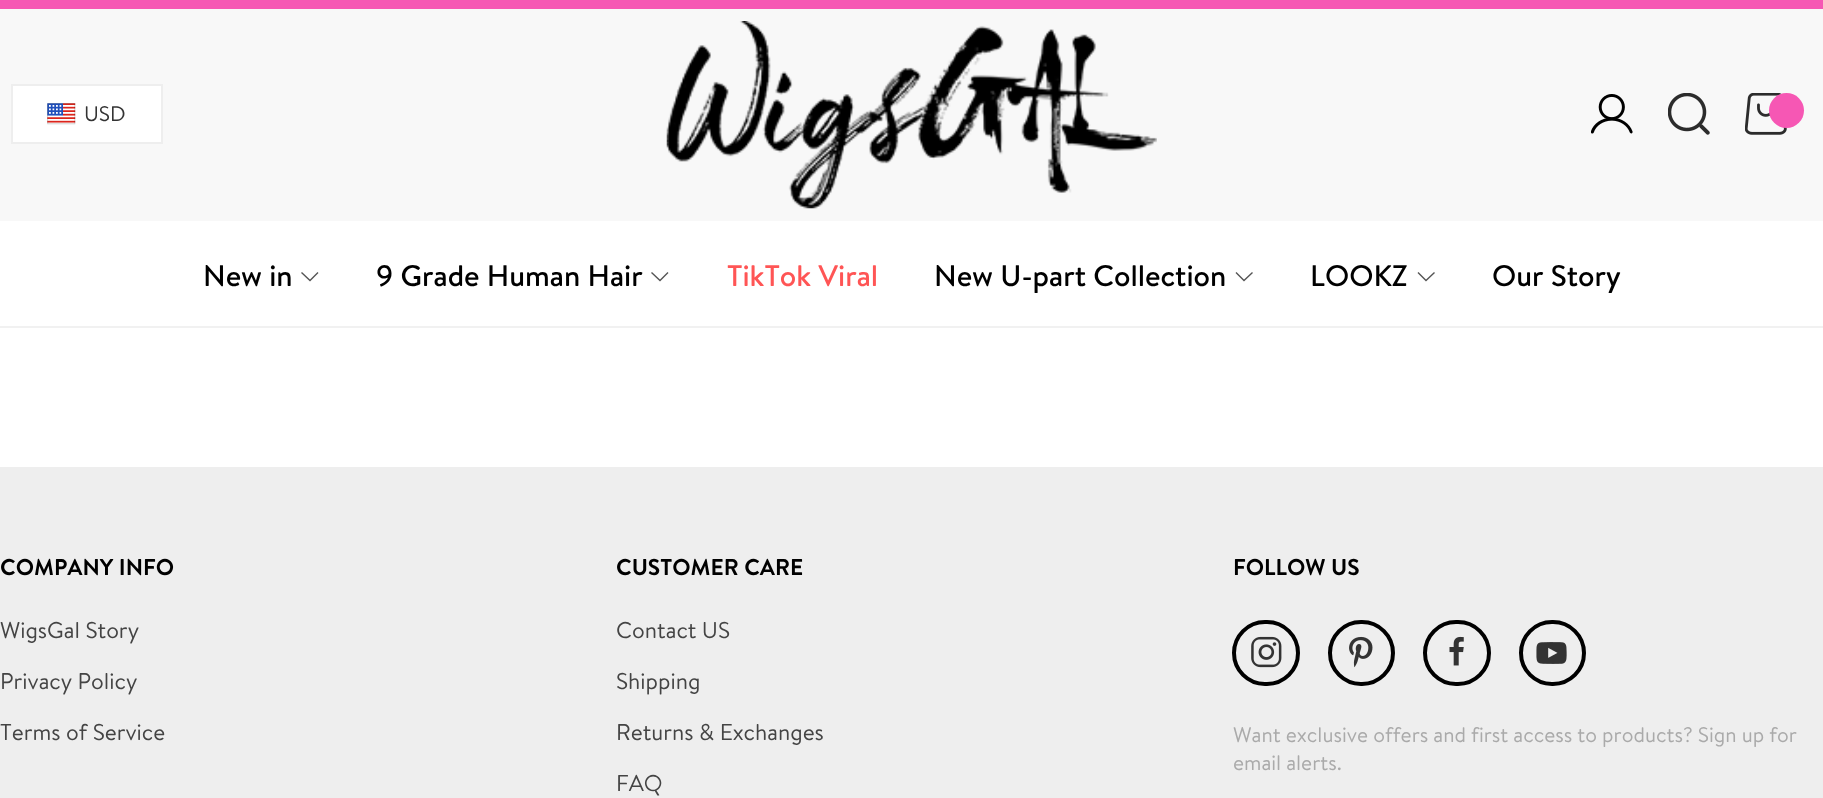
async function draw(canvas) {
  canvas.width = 1823
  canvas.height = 798
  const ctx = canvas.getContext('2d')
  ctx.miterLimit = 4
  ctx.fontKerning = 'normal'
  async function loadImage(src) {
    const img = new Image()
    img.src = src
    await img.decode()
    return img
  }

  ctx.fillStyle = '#fff'
  ctx.fillRect(0, 0, 1823, 798)
  ctx.fillStyle = '#f657b4'
  ctx.fillRect(0, 0, 1823, 9)
  ctx.fillStyle = '#f1f1f1'
  ctx.fillRect(0, 326, 1823, 2)
  ctx.fillStyle = '#f8f8f8'
  ctx.fillRect(0, 9, 1823, 212)
  ctx.fillStyle = '#fff'
  ctx.beginPath()
  ctx.rect(12, 85, 150, 58)
  ctx.fill()
  ctx.strokeStyle = '#eee'
  ctx.lineWidth = 2
  ctx.stroke()
  ctx.drawImage(await loadImage('image0.png'), 47, 103, 29, 22)
  ctx.font = '21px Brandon'
  ctx.fillStyle = '#333'
  ctx.fillText('USD', 84, 121)
  ctx.drawImage(await loadImage('image1.png'), 666, 21, 491, 188)
  ctx.drawImage(await loadImage('image2.png'), 1591, 94, 42, 40)
  ctx.drawImage(await loadImage('image3.png'), 1668, 93, 42, 42)
  ctx.drawImage(await loadImage('image4.png'), 1745, 93, 42, 42)
  ctx.fillStyle = '#f657b4'
  ctx.beginPath()
  ctx.arc(1786.5, 110.5, 17.5, 0, 2 * Math.PI)
  ctx.fill()
  ctx.font = '500 29.75px Brandon'
  ctx.fillStyle = '#000'
  ctx.fillText('New in', 203, 286)
  ctx.beginPath()
  ctx.moveTo(318, 272.5)
  ctx.lineTo(310, 280.5)
  ctx.lineTo(301.5, 272.5)
  ctx.strokeStyle = '#555'
  ctx.lineWidth = 1.4
  ctx.stroke()
  ctx.fillText('9 Grade Human Hair', 376, 286)
  ctx.beginPath()
  ctx.moveTo(668, 272.5)
  ctx.lineTo(660, 280.5)
  ctx.lineTo(651.5, 272.5)
  ctx.stroke()
  ctx.fillStyle = '#f55'
  ctx.fillText('TikTok Viral', 727, 286)
  ctx.fillStyle = '#000'
  ctx.fillText('New U-part Collection', 934, 286)
  ctx.beginPath()
  ctx.moveTo(1252.5, 272.5)
  ctx.lineTo(1244, 280.5)
  ctx.lineTo(1236, 272.5)
  ctx.stroke()
  ctx.fillText('LOOKZ', 1310, 286)
  ctx.beginPath()
  ctx.moveTo(1434.5, 272.5)
  ctx.lineTo(1426, 280.5)
  ctx.lineTo(1418, 272.5)
  ctx.stroke()
  ctx.fillText('Our Story', 1492, 286)
  ctx.fillStyle = '#eee'
  ctx.fillRect(0, 467, 1823, 331)
  ctx.font = 'bold 22.75px Brandon'
  ctx.fillStyle = '#000'
  ctx.fillText('COMPANY INFO', 0, 575)
  ctx.font = '22.75px Brandon'
  ctx.fillStyle = '#444'
  ctx.fillText('WigsGal Story', 0, 638)
  ctx.fillText('Privacy Policy', 0, 689)
  ctx.fillText('Terms of Service', 0, 740)
  ctx.font = 'bold 22.75px Brandon'
  ctx.fillStyle = '#000'
  ctx.fillText('CUSTOMER CARE', 616, 575)
  ctx.font = '22.75px Brandon'
  ctx.fillStyle = '#444'
  ctx.fillText('Contact US', 616, 638)
  ctx.fillText('Shipping', 616, 689)
  ctx.fillText('Returns & Exchanges', 616, 740)
  ctx.fillText('FAQ', 616, 791)
  ctx.font = 'bold 22.75px Brandon'
  ctx.fillStyle = '#000'
  ctx.fillText('FOLLOW US', 1233, 575)
  ctx.beginPath()
  ctx.roundRect(1234, 622, 64, 62, 31)
  ctx.strokeStyle = '#000'
  ctx.lineWidth = 4
  ctx.stroke()
  ctx.drawImage(await loadImage('image5.png'), 1251, 636, 31, 32)
  ctx.beginPath()
  ctx.roundRect(1330, 622, 63, 62, 31)
  ctx.stroke()
  ctx.drawImage(await loadImage('image6.png'), 1349, 636, 24, 32)
  ctx.beginPath()
  ctx.roundRect(1425, 622, 64, 62, 31)
  ctx.stroke()
  ctx.drawImage(await loadImage('image7.png'), 1449, 636, 15, 30)
  ctx.beginPath()
  ctx.roundRect(1521, 622, 63, 62, 31)
  ctx.stroke()
  ctx.drawImage(await loadImage('image8.png'), 1536, 642, 31, 22)
  ctx.font = '21px Brandon'
  ctx.fillStyle = '#aaa'
  ctx.fillText('Want exclusive offers and first access to products? Sign up for', 1233, 742)
  ctx.fillText('email alerts.', 1233, 770)
}

draw(document.querySelector('canvas'))
